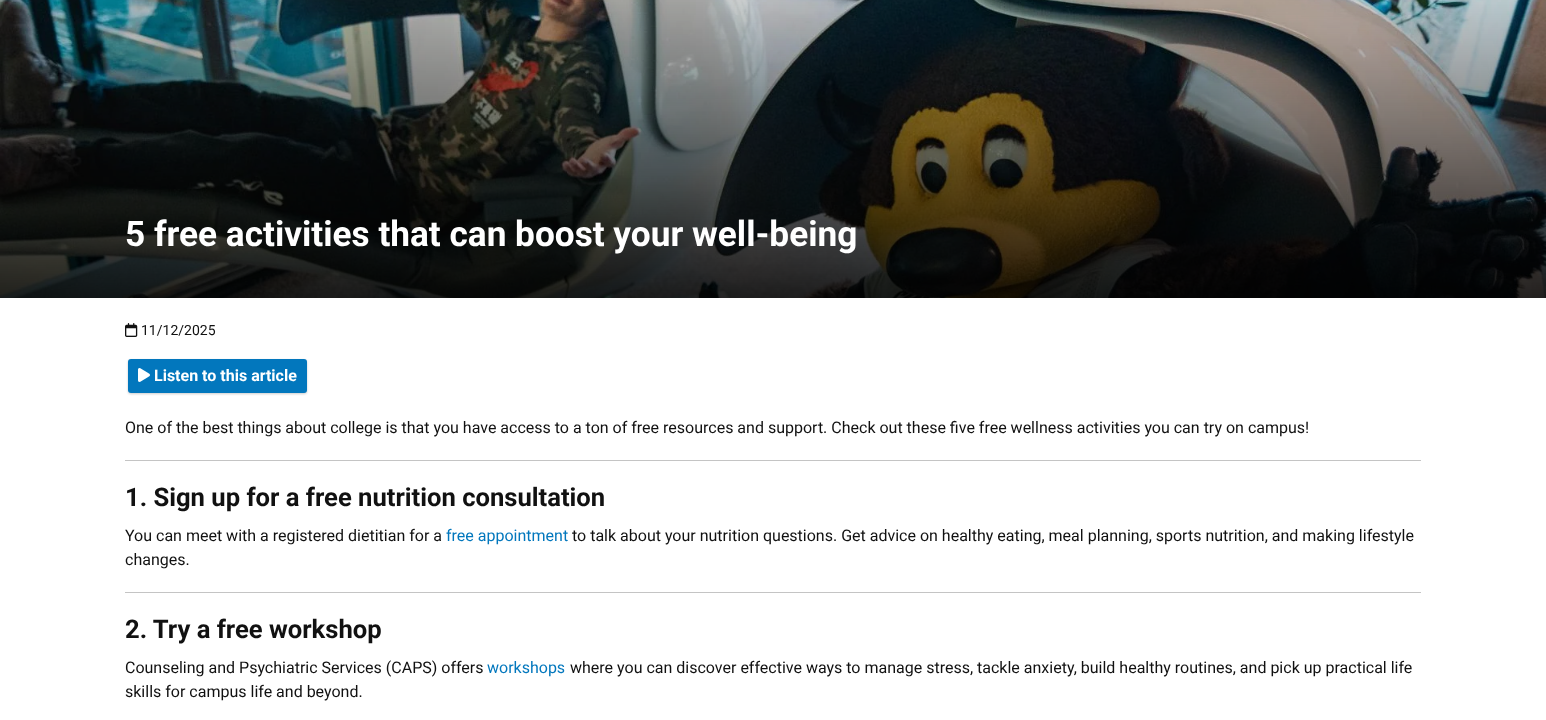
async function draw(canvas) {
  canvas.width = 1546
  canvas.height = 720
  const ctx = canvas.getContext('2d')
  ctx.miterLimit = 4
  ctx.fontKerning = 'normal'
  async function loadImage(src) {
    const img = new Image()
    img.src = src
    await img.decode()
    return img
  }

  ctx.fillStyle = '#fff'
  ctx.fillRect(0, 0, 1546, 720)
  ctx.drawImage(await loadImage('image0.png'), 0, 0, 1546, 298)
  ctx.font = 'bold 35.2px Roboto'
  ctx.fillText('5 free activities that can boost your well-being', 125, 246)
  ctx.drawImage(await loadImage('image1.png'), 125, 323, 13, 14)
  ctx.font = '14px Roboto'
  ctx.fillStyle = '#111'
  ctx.fillText('11/12/2025', 141, 335)
  ctx.fillStyle = '#00000033'
  ctx.filter = 'blur(1px)'
  ctx.beginPath()
  ctx.roundRect(128, 360, 179, 34, 3)
  ctx.fill()
  ctx.filter = 'none'
  ctx.fillStyle = '#0277bd'
  ctx.beginPath()
  ctx.roundRect(128, 359, 179, 34, 3)
  ctx.fill()
  ctx.drawImage(await loadImage('image2.png'), 138, 368, 12, 14)
  ctx.font = 'bold 16px Roboto'
  ctx.fillStyle = '#fff'
  ctx.fillText('Listen to this article', 154, 381)
  ctx.font = '16px Roboto'
  ctx.fillStyle = '#111'
  ctx.fillText('One of the best things about college is that you have access to a ton of free resources and support. Check out these five free wellness activities you can try on campus!', 125, 433)
  ctx.fillStyle = '#c4c4c4'
  ctx.fillRect(125, 460, 1296, 1)
  ctx.font = 'bold 25.6px Roboto'
  ctx.fillStyle = '#111'
  ctx.fillText('1. Sign up for a free nutrition consultation', 125, 506)
  ctx.font = '16px Roboto'
  ctx.fillText('You can meet with a registered dietitian for a', 125, 541)
  ctx.fillStyle = '#0277bd'
  ctx.fillText('free appointment', 446, 541)
  ctx.fillStyle = '#111'
  ctx.fillText('to talk about your nutrition questions. Get advice on healthy eating, meal planning, sports nutrition, and making lifestyle', 572, 541)
  ctx.fillText('changes.', 125, 565)
  ctx.fillStyle = '#c4c4c4'
  ctx.fillRect(125, 592, 1296, 1)
  ctx.font = 'bold 25.6px Roboto'
  ctx.fillStyle = '#111'
  ctx.fillText('2. Try a free workshop', 125, 638)
  ctx.font = '16px Roboto'
  ctx.fillText('Counseling and Psychiatric Services (CAPS) offers', 125, 673)
  ctx.fillStyle = '#0277bd'
  ctx.fillText('workshops', 487, 673)
  ctx.fillStyle = '#111'
  ctx.fillText('where you can discover effective ways to manage stress, tackle anxiety, build healthy routines, and pick up practical life', 570, 673)
  ctx.fillText('skills for campus life and beyond.', 125, 697)
}

draw(document.querySelector('canvas'))
